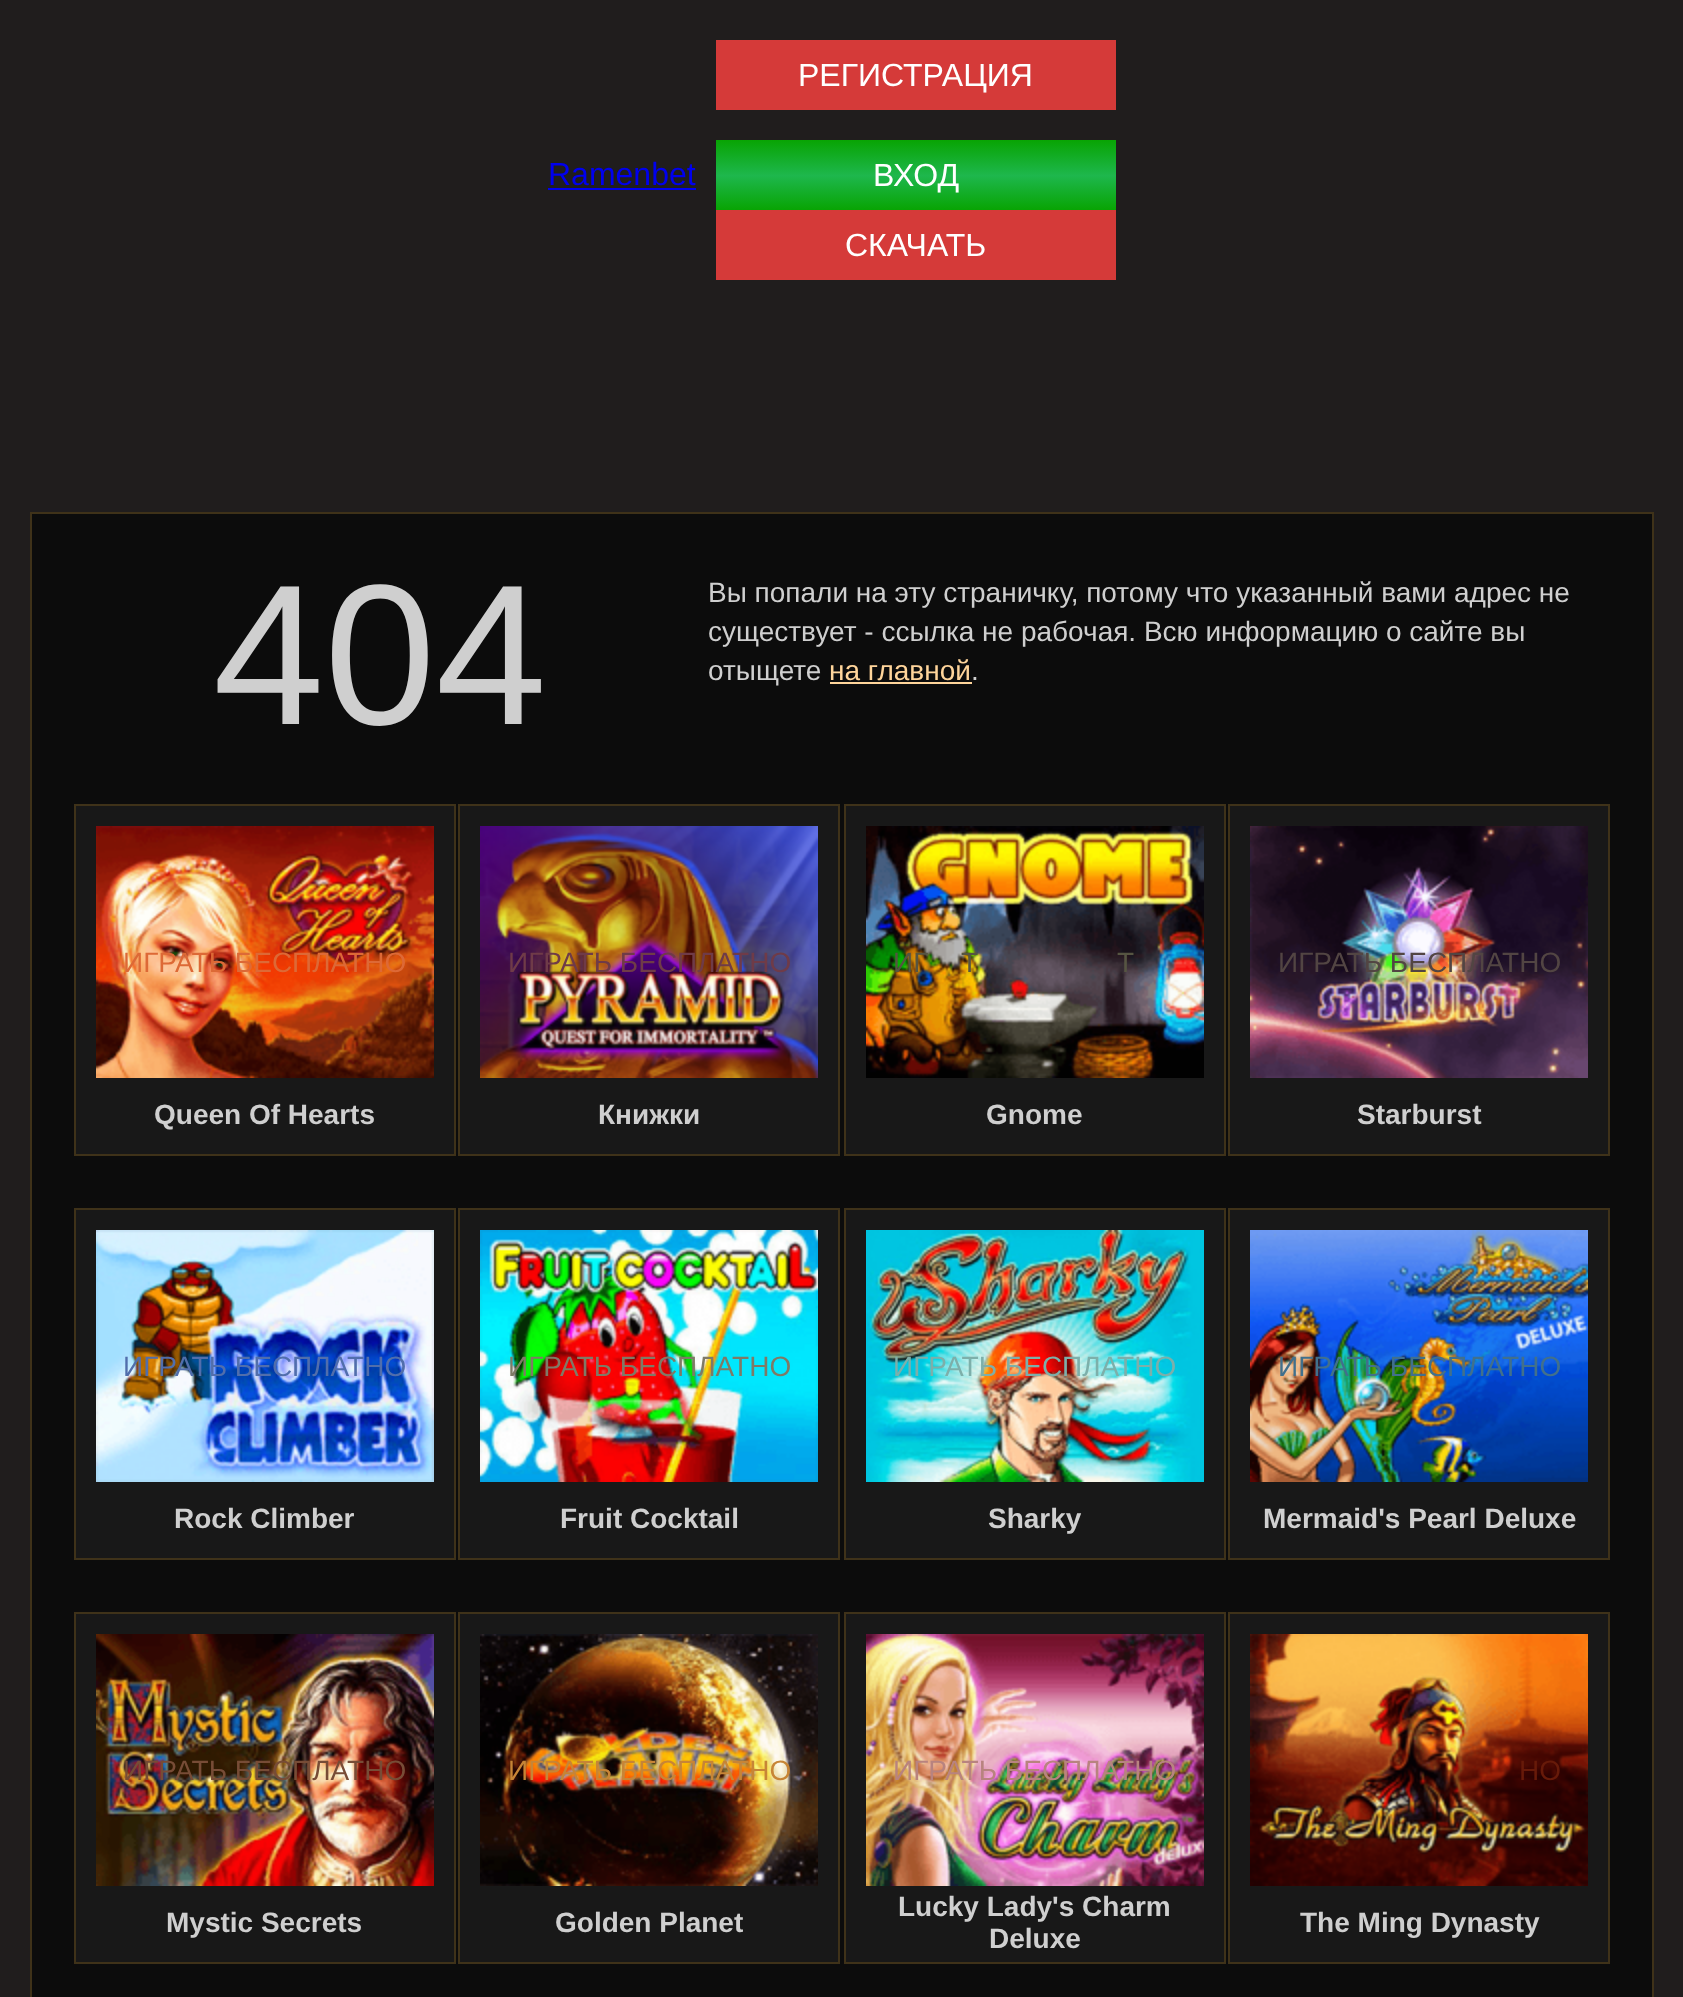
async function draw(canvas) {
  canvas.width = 1683
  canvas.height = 1997
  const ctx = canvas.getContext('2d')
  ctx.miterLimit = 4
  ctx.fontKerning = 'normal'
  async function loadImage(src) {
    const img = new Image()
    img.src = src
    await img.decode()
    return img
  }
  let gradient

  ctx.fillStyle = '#201d1d'
  ctx.fillRect(0, 0, 1683, 1997)
  ctx.font = '32px Liberation Sans'
  ctx.fillStyle = '#00e'
  ctx.fillText('Ramenbet', 548, 185)
  ctx.fillRect(548, 188, 148, 2)
  ctx.fillStyle = '#d53a39'
  ctx.fillRect(716, 40, 400, 70)
  ctx.fillStyle = '#fff'
  ctx.fillText('РЕГИСТРАЦИЯ', 798, 86)
  gradient = ctx.createLinearGradient(916, 140, 916, 210)
  gradient.addColorStop(0, '#08a403')
  gradient.addColorStop(0.51, '#1eb74d')
  gradient.addColorStop(1, '#08a403')
  ctx.fillStyle = gradient
  ctx.fillRect(716, 140, 400, 70)
  ctx.fillStyle = '#fff'
  ctx.fillText('ВХОД', 873, 186)
  ctx.fillStyle = '#d53a39'
  ctx.fillRect(716, 210, 400, 70)
  ctx.fillStyle = '#fff'
  ctx.fillText('СКАЧАТЬ', 845, 256)
  ctx.fillStyle = '#0c0c0c'
  ctx.beginPath()
  ctx.rect(31, 513, 1622, 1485)
  ctx.fill()
  ctx.strokeStyle = '#3f3219'
  ctx.lineWidth = 2
  ctx.stroke()
  ctx.font = '200px Liberation Sans'
  ctx.fillStyle = '#cfcfcf'
  ctx.fillText('404', 213, 724)
  ctx.font = '28px Liberation Sans'
  ctx.fillText('Вы попали на эту страничку, потому что указанный вами адрес не', 708, 602)
  ctx.fillText('существует - ссылка не рабочая. Всю информацию о сайте вы', 708, 641)
  ctx.fillText('отыщете', 708, 680)
  ctx.fillStyle = '#ffd59b'
  ctx.fillText('на главной', 829, 680)
  ctx.fillRect(830, 682, 142, 2)
  ctx.fillStyle = '#cfcfcf'
  ctx.fillText('.', 971, 680)
  ctx.fillStyle = '#181818'
  ctx.beginPath()
  ctx.rect(75, 805, 380, 350)
  ctx.fill()
  ctx.stroke()
  ctx.drawImage(await loadImage('image0.png'), 96, 826, 338, 252)
  ctx.fillStyle = '#dd6936'
  ctx.fillText('ИГРАТЬ БЕСПЛАТНО', 123, 972)
  ctx.font = 'bold 28px Liberation Sans'
  ctx.fillStyle = '#cfcfcf'
  ctx.fillText('Queen Of Hearts', 154, 1124)
  ctx.fillStyle = '#181818'
  ctx.beginPath()
  ctx.rect(459, 805, 380, 350)
  ctx.fill()
  ctx.stroke()
  ctx.drawImage(await loadImage('image1.png'), 480, 826, 338, 252)
  ctx.font = '28px Liberation Sans'
  ctx.fillStyle = '#6f3b48'
  ctx.fillText('ИГРАТЬ БЕСПЛАТНО', 508, 972)
  ctx.font = 'bold 28px Liberation Sans'
  ctx.fillStyle = '#cfcfcf'
  ctx.fillText('Книжки', 598, 1124)
  ctx.fillStyle = '#181818'
  ctx.beginPath()
  ctx.rect(845, 805, 380, 350)
  ctx.fill()
  ctx.stroke()
  ctx.drawImage(await loadImage('image2.png'), 866, 826, 338, 252)
  ctx.font = '28px Liberation Sans'
  ctx.fillStyle = '#565542'
  ctx.fillText('ИГ', 893, 972)
  ctx.fillText('Т', 961, 972)
  ctx.fillText('Т', 1117, 972)
  ctx.font = 'bold 28px Liberation Sans'
  ctx.fillStyle = '#cfcfcf'
  ctx.fillText('Gnome', 986, 1124)
  ctx.fillStyle = '#181818'
  ctx.beginPath()
  ctx.rect(1229, 805, 380, 350)
  ctx.fill()
  ctx.stroke()
  ctx.drawImage(await loadImage('image3.png'), 1250, 826, 338, 252)
  ctx.font = '28px Liberation Sans'
  ctx.fillStyle = '#524543'
  ctx.fillText('ИГРАТЬ БЕСПЛАТНО', 1278, 972)
  ctx.font = 'bold 28px Liberation Sans'
  ctx.fillStyle = '#cfcfcf'
  ctx.fillText('Starburst', 1357, 1124)
  ctx.fillStyle = '#181818'
  ctx.beginPath()
  ctx.rect(75, 1209, 380, 350)
  ctx.fill()
  ctx.stroke()
  ctx.drawImage(await loadImage('image4.png'), 96, 1230, 338, 252)
  ctx.font = '28px Liberation Sans'
  ctx.fillStyle = '#516eac'
  ctx.fillText('ИГРАТЬ БЕСПЛАТНО', 123, 1376)
  ctx.font = 'bold 28px Liberation Sans'
  ctx.fillStyle = '#cfcfcf'
  ctx.fillText('Rock Climber', 174, 1528)
  ctx.fillStyle = '#181818'
  ctx.beginPath()
  ctx.rect(459, 1209, 380, 350)
  ctx.fill()
  ctx.stroke()
  ctx.drawImage(await loadImage('image5.png'), 480, 1230, 338, 252)
  ctx.font = '28px Liberation Sans'
  ctx.fillStyle = '#7f7a66'
  ctx.fillText('ИГРАТЬ БЕСПЛАТНО', 508, 1376)
  ctx.font = 'bold 28px Liberation Sans'
  ctx.fillStyle = '#cfcfcf'
  ctx.fillText('Fruit Cocktail', 560, 1528)
  ctx.fillStyle = '#181818'
  ctx.beginPath()
  ctx.rect(845, 1209, 380, 350)
  ctx.fill()
  ctx.stroke()
  ctx.drawImage(await loadImage('image6.png'), 866, 1230, 338, 252)
  ctx.font = '28px Liberation Sans'
  ctx.fillStyle = '#7dafaa'
  ctx.fillText('ИГРАТЬ БЕСПЛАТНО', 893, 1376)
  ctx.font = 'bold 28px Liberation Sans'
  ctx.fillStyle = '#cfcfcf'
  ctx.fillText('Sharky', 988, 1528)
  ctx.fillStyle = '#181818'
  ctx.beginPath()
  ctx.rect(1229, 1209, 380, 350)
  ctx.fill()
  ctx.stroke()
  ctx.drawImage(await loadImage('image7.png'), 1250, 1230, 338, 252)
  ctx.font = '28px Liberation Sans'
  ctx.fillStyle = '#41708c'
  ctx.fillText('ИГРАТЬ БЕСПЛАТНО', 1278, 1376)
  ctx.font = 'bold 28px Liberation Sans'
  ctx.fillStyle = '#cfcfcf'
  ctx.fillText('Mermaid\'s Pearl Deluxe', 1263, 1528)
  ctx.fillStyle = '#181818'
  ctx.beginPath()
  ctx.rect(75, 1613, 380, 350)
  ctx.fill()
  ctx.stroke()
  ctx.drawImage(await loadImage('image8.png'), 96, 1634, 338, 252)
  ctx.font = '28px Liberation Sans'
  ctx.fillStyle = '#774c36'
  ctx.fillText('ИГРАТЬ БЕСПЛАТНО', 123, 1780)
  ctx.font = 'bold 28px Liberation Sans'
  ctx.fillStyle = '#cfcfcf'
  ctx.fillText('Mystic Secrets', 166, 1932)
  ctx.fillStyle = '#181818'
  ctx.beginPath()
  ctx.rect(459, 1613, 380, 350)
  ctx.fill()
  ctx.stroke()
  ctx.drawImage(await loadImage('image9.png'), 480, 1634, 338, 252)
  ctx.font = '28px Liberation Sans'
  ctx.fillStyle = '#c78536'
  ctx.fillText('ИГРАТЬ БЕСПЛАТНО', 508, 1780)
  ctx.font = 'bold 28px Liberation Sans'
  ctx.fillStyle = '#cfcfcf'
  ctx.fillText('Golden Planet', 555, 1932)
  ctx.fillStyle = '#181818'
  ctx.beginPath()
  ctx.rect(845, 1613, 380, 350)
  ctx.fill()
  ctx.stroke()
  ctx.drawImage(await loadImage('image10.png'), 866, 1634, 338, 252)
  ctx.font = '28px Liberation Sans'
  ctx.fillStyle = '#b8837f'
  ctx.fillText('ИГРАТЬ БЕСПЛАТНО', 893, 1780)
  ctx.font = 'bold 28px Liberation Sans'
  ctx.fillStyle = '#cfcfcf'
  ctx.fillText('Lucky Lady\'s Charm', 898, 1916)
  ctx.fillText('Deluxe', 989, 1948)
  ctx.fillStyle = '#181818'
  ctx.beginPath()
  ctx.rect(1229, 1613, 380, 350)
  ctx.fill()
  ctx.stroke()
  ctx.drawImage(await loadImage('image11.png'), 1250, 1634, 338, 252)
  ctx.font = '28px Liberation Sans'
  ctx.fillStyle = '#671a09'
  ctx.fillText('НО', 1519, 1780)
  ctx.font = 'bold 28px Liberation Sans'
  ctx.fillStyle = '#cfcfcf'
  ctx.fillText('The Ming Dynasty', 1300, 1932)
}

draw(document.querySelector('canvas'))
